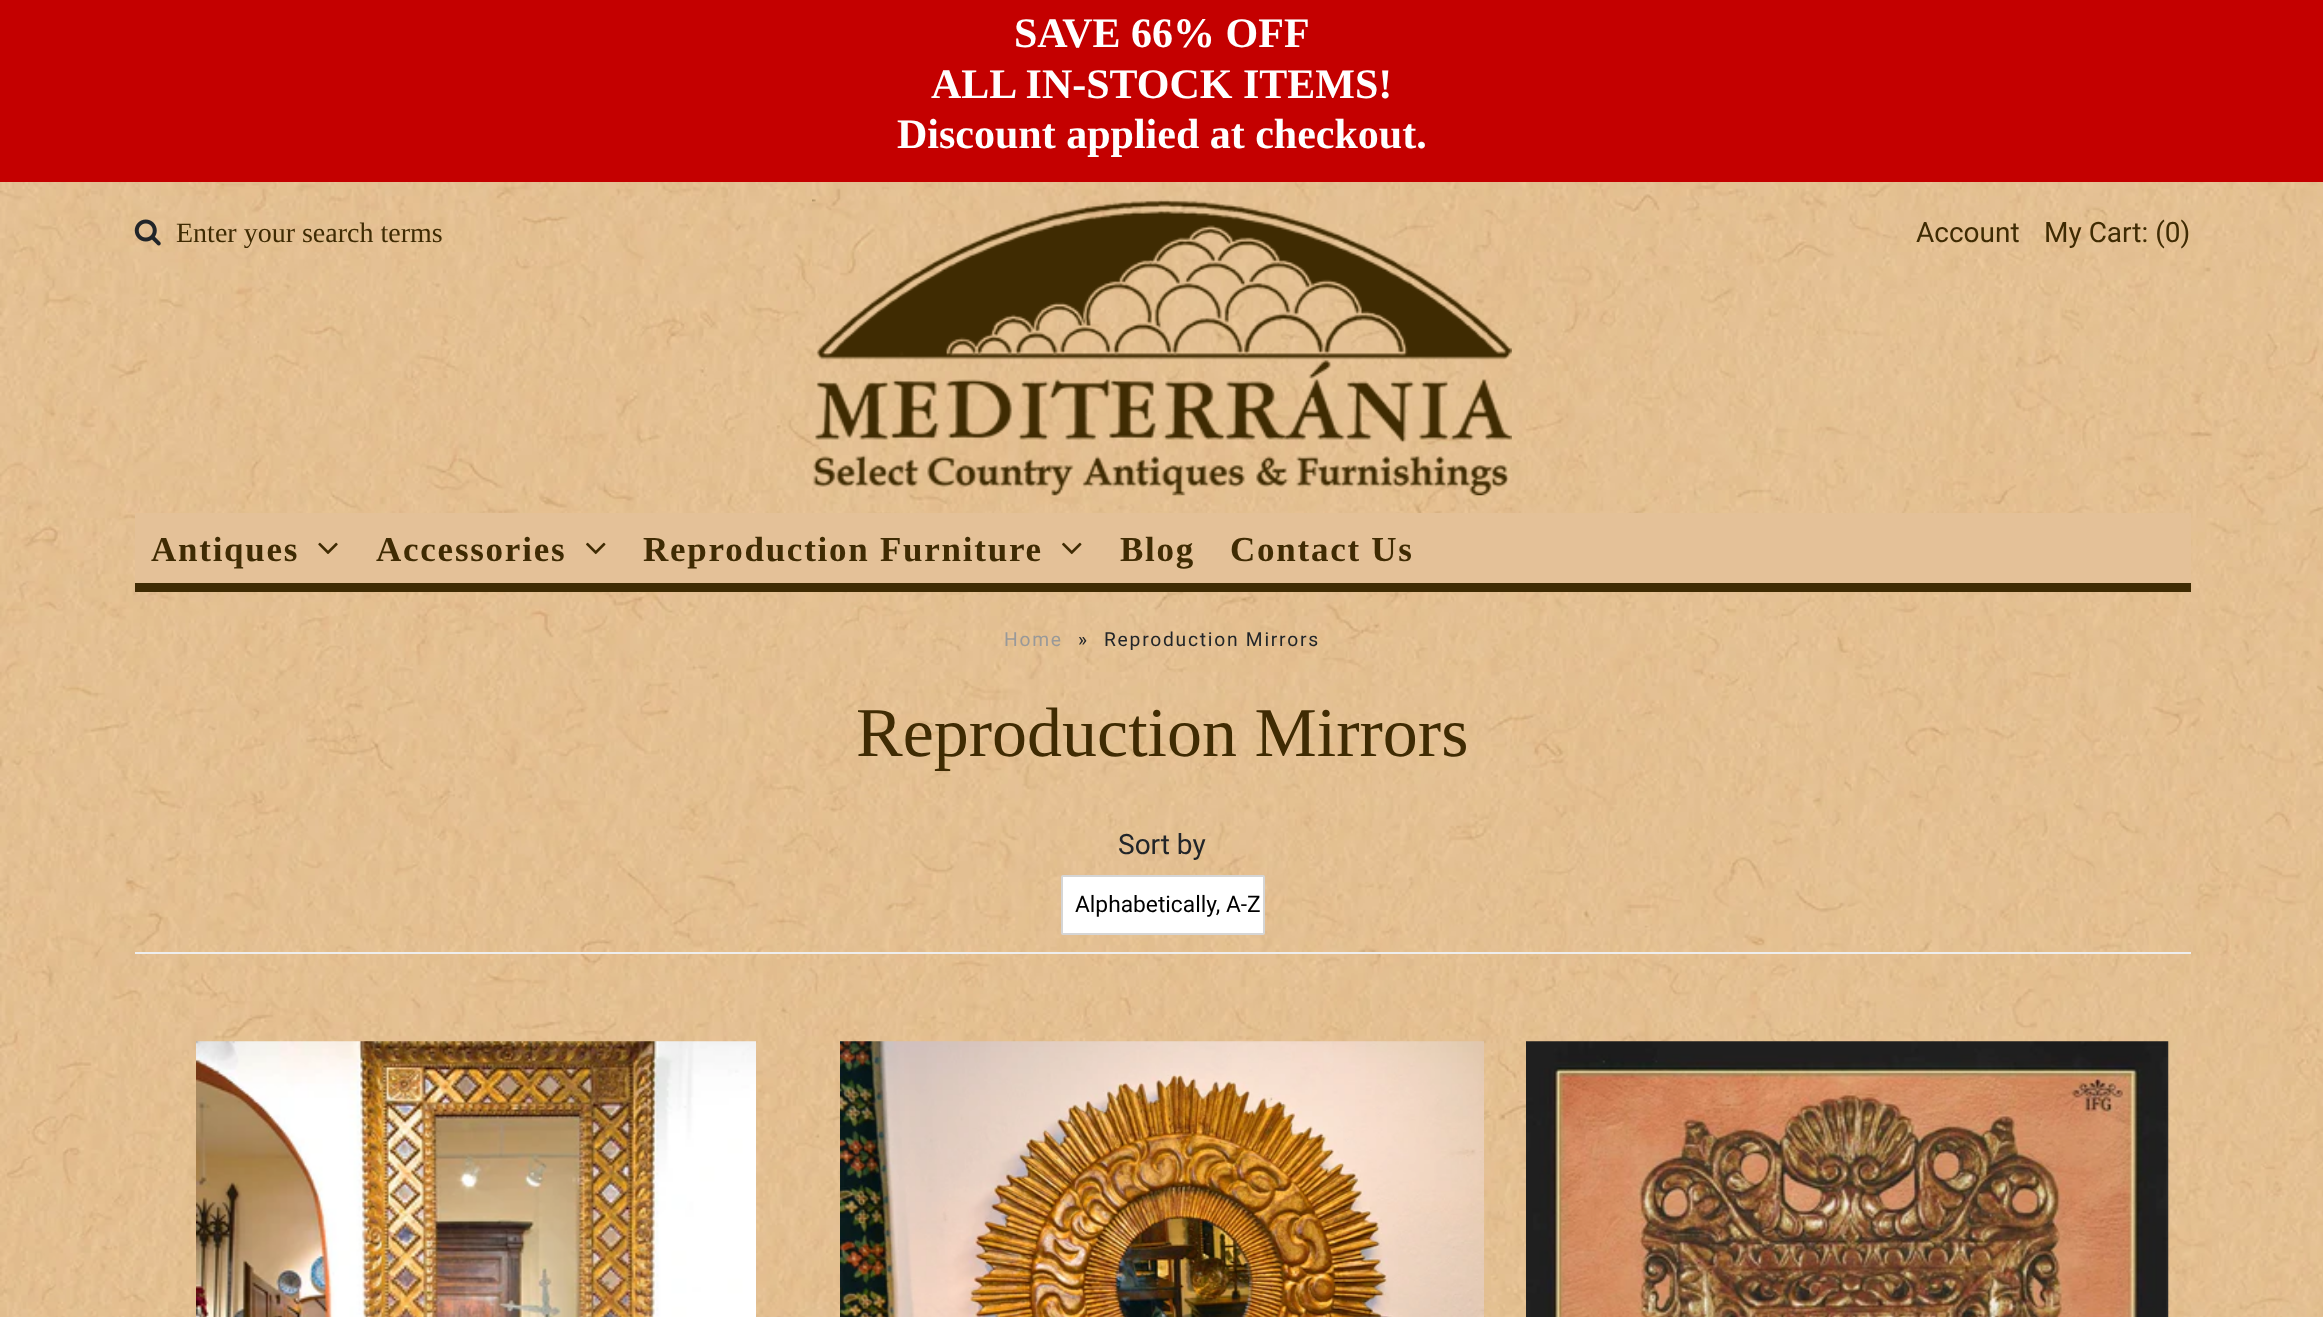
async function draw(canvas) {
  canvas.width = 2323
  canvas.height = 1317
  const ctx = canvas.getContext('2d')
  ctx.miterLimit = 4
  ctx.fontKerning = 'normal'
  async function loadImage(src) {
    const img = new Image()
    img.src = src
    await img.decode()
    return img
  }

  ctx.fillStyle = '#fff'
  ctx.fillRect(0, 0, 2323, 1317)
  ctx.drawImage(await loadImage('image0.png'), 0, 182, 2323, 1135)
  ctx.fillStyle = '#c40000'
  ctx.fillRect(0, 0, 2323, 182)
  ctx.font = 'bold 42px Liberation Serif'
  ctx.fillStyle = '#fff'
  ctx.fillText('SAVE 66% OFF', 1014, 47)
  ctx.fillText('ALL IN-STOCK ITEMS!', 931, 98)
  ctx.fillText('Discount applied at checkout.', 897, 148)
  ctx.drawImage(await loadImage('image1.png'), 134, 219, 27, 27)
  ctx.font = '28px Liberation Serif'
  ctx.fillStyle = '#3f2b03'
  ctx.fillText('Enter your search terms', 176, 242)
  ctx.drawImage(await loadImage('image2.png'), 812, 199, 700, 297)
  ctx.font = '28px Roboto'
  ctx.fillText('Account', 1916, 242)
  ctx.fillText('My Cart: (0)', 2044, 242)
  ctx.fillStyle = '#e4c198'
  ctx.fillRect(135, 513, 2056, 70)
  ctx.fillStyle = '#3f2b03'
  ctx.fillRect(135, 583, 2056, 9)
  ctx.letterSpacing = '1.75px'
  ctx.font = 'bold 35px Liberation Serif'
  ctx.fillText('Antiques', 151, 561)
  ctx.drawImage(await loadImage('image3.png'), 318, 542, 20, 12)
  ctx.fillText('Accessories', 376, 561)
  ctx.drawImage(await loadImage('image4.png'), 586, 542, 20, 13)
  ctx.fillText('Reproduction Furniture', 643, 561)
  ctx.drawImage(await loadImage('image4.png'), 1062, 542, 20, 13)
  ctx.fillText('Blog', 1120, 561)
  ctx.fillText('Contact Us', 1230, 561)
  ctx.font = '19.25px Roboto'
  ctx.fillStyle = '#999'
  ctx.fillText('Home', 1004, 646)
  ctx.fillStyle = '#212529'
  ctx.fillText('»', 1078, 646)
  ctx.fillText('Reproduction Mirrors', 1104, 646)
  ctx.letterSpacing = '0px'
  ctx.font = '70px Liberation Serif'
  ctx.fillStyle = '#3f2b03'
  ctx.fillText('Reproduction Mirrors', 856, 756)
  ctx.fillStyle = '#eee'
  ctx.fillRect(135, 952, 2056, 2)
  ctx.font = '28px Roboto'
  ctx.fillStyle = '#212529'
  ctx.fillText('Sort by', 1118, 854)
  ctx.fillStyle = '#fff'
  ctx.beginPath()
  ctx.roundRect(1062, 876, 202, 58, 1)
  ctx.fill()
  ctx.strokeStyle = '#d5d5d5'
  ctx.lineWidth = 2
  ctx.stroke()
  ctx.font = '22.75px Roboto'
  ctx.fillStyle = '#000'
  ctx.fillText('Alphabetically, A-Z', 1075, 912)
  ctx.drawImage(await loadImage('image5.png'), 196, 1041, 560, 276)
  ctx.drawImage(await loadImage('image6.png'), 840, 1041, 644, 276)
  ctx.drawImage(await loadImage('image7.png'), 1526, 1041, 643, 276)
}

draw(document.querySelector('canvas'))
